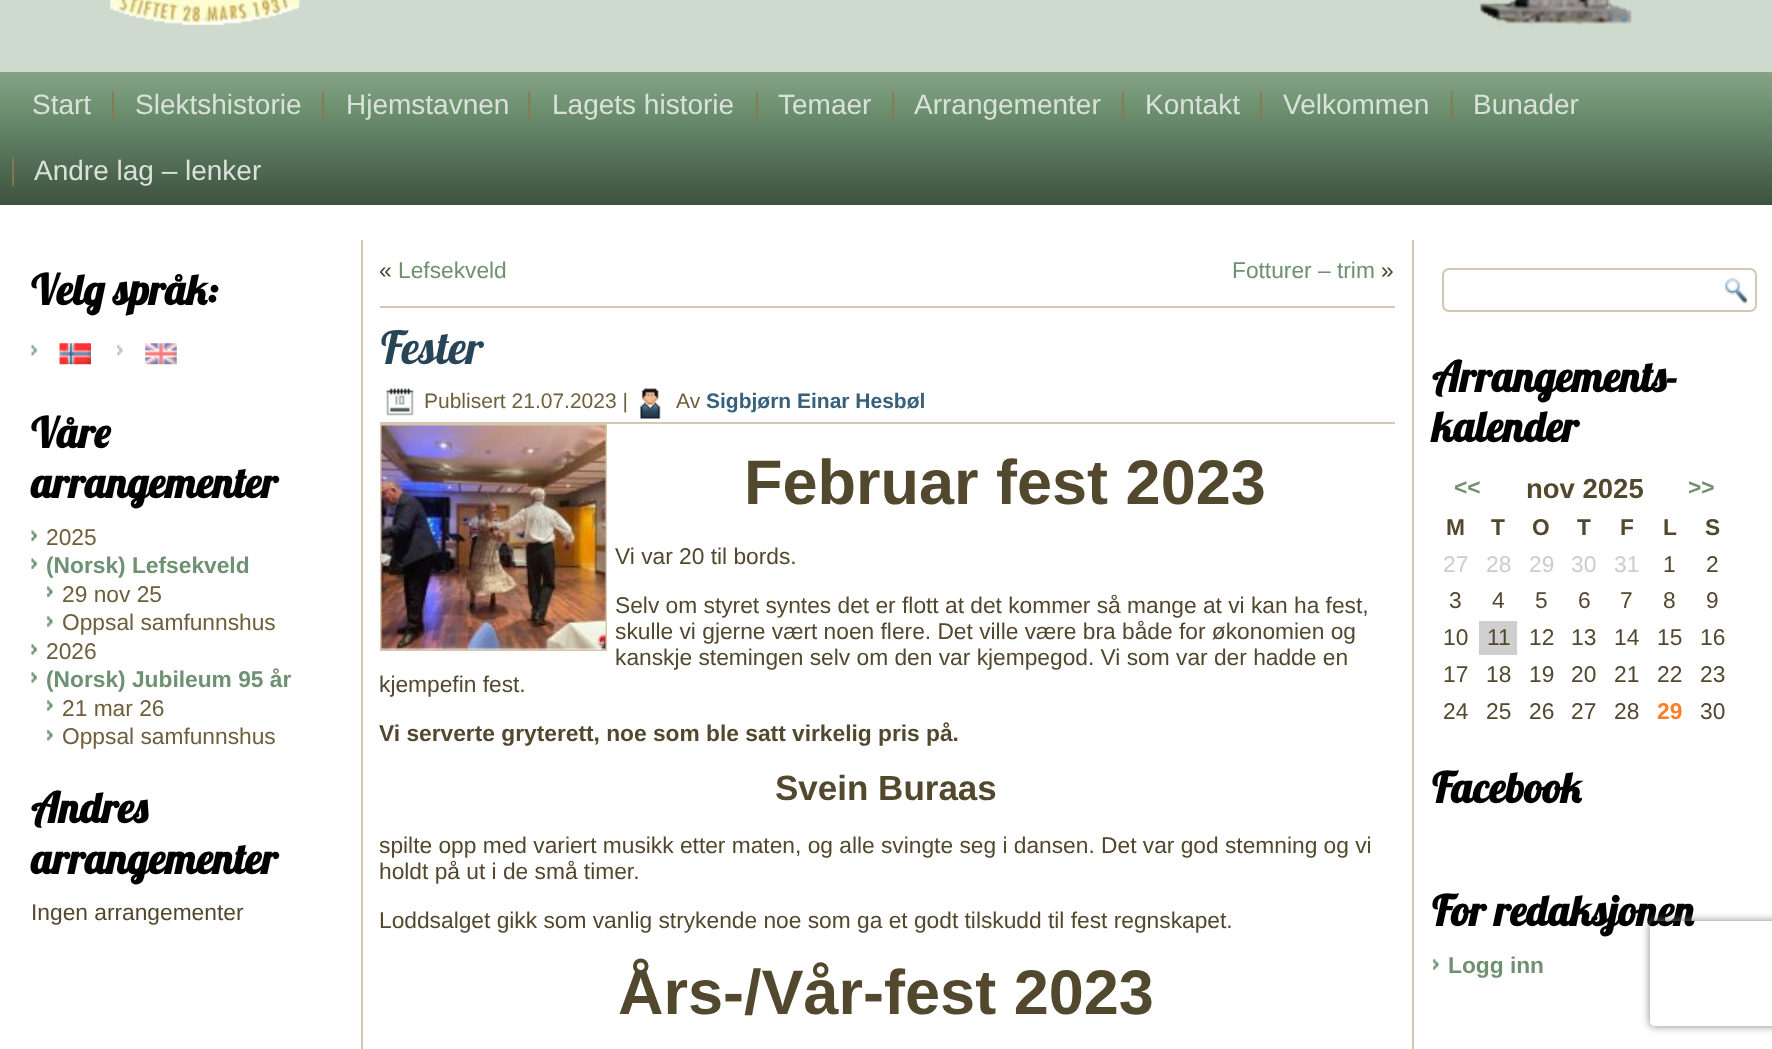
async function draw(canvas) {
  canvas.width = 1772
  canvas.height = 1049
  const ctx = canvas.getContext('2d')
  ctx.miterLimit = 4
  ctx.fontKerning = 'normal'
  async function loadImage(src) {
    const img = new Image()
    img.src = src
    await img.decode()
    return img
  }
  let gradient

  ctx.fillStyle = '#fff'
  ctx.fillRect(0, 0, 1772, 1049)
  ctx.fillStyle = '#cedace'
  ctx.fillRect(0, 0, 1772, 72)
  ctx.drawImage(await loadImage('image0.png'), 110, 0, 190, 26)
  ctx.drawImage(await loadImage('image1.png'), 1479, 0, 153, 27)
  gradient = ctx.createLinearGradient(886, 72, 886, 205)
  gradient.addColorStop(0, '#85a387')
  gradient.addColorStop(0.27, '#6e9171')
  gradient.addColorStop(1, '#3d513f')
  ctx.fillStyle = gradient
  ctx.fillRect(0, 72, 1772, 133)
  ctx.font = '28px Liberation Sans'
  ctx.fillStyle = '#d9e2da'
  ctx.fillText('Start', 32, 114)
  ctx.drawImage(await loadImage('image2.png'), 112, 91, 2, 29)
  ctx.fillText('Slektshistorie', 135, 114)
  ctx.drawImage(await loadImage('image2.png'), 322, 91, 2, 29)
  ctx.fillText('Hjemstavnen', 346, 114)
  ctx.drawImage(await loadImage('image3.png'), 528, 91, 3, 29)
  ctx.fillText('Lagets historie', 552, 114)
  ctx.drawImage(await loadImage('image2.png'), 756, 91, 2, 29)
  ctx.fillText('Temaer', 778, 114)
  ctx.drawImage(await loadImage('image3.png'), 892, 91, 3, 29)
  ctx.fillText('Arrangementer', 914, 114)
  ctx.drawImage(await loadImage('image4.png'), 1121, 91, 3, 29)
  ctx.fillText('Kontakt', 1145, 114)
  ctx.drawImage(await loadImage('image2.png'), 1260, 91, 2, 29)
  ctx.fillText('Velkommen', 1283, 114)
  ctx.drawImage(await loadImage('image4.png'), 1450, 91, 3, 29)
  ctx.fillText('Bunader', 1473, 114)
  ctx.drawImage(await loadImage('image5.png'), 12, 157, 2, 30)
  ctx.fillText('Andre lag – lenker', 34, 180)
  ctx.fillStyle = '#d4c9b0'
  ctx.fillRect(361, 240, 2, 809)
  ctx.font = 'bold 42px Lobster'
  ctx.fillStyle = '#000'
  ctx.fillText('Velg språk:', 31, 305)
  ctx.drawImage(await loadImage('image6.png'), 31, 345, 6, 11)
  ctx.drawImage(await loadImage('image7.png'), 59, 343, 32, 22)
  ctx.drawImage(await loadImage('image8.png'), 117, 345, 6, 11)
  ctx.drawImage(await loadImage('image9.png'), 145, 343, 32, 22)
  ctx.fillText('Våre', 31, 448)
  ctx.fillText('arrangementer', 31, 498)
  ctx.drawImage(await loadImage('image10.png'), 31, 530, 6, 11)
  ctx.font = '22.75px Liberation Sans'
  ctx.fillStyle = '#6d5f3c'
  ctx.fillText('2025', 46, 545)
  ctx.drawImage(await loadImage('image10.png'), 31, 558, 6, 11)
  ctx.font = 'bold 22.75px Liberation Sans'
  ctx.fillStyle = '#6e9171'
  ctx.fillText('(Norsk) Lefsekveld', 46, 573)
  ctx.drawImage(await loadImage('image11.png'), 47, 586, 6, 11)
  ctx.font = '22.75px Liberation Sans'
  ctx.fillStyle = '#6d5f3c'
  ctx.fillText('29 nov 25', 62, 602)
  ctx.drawImage(await loadImage('image12.png'), 47, 616, 6, 11)
  ctx.fillText('Oppsal samfunnshus', 62, 630)
  ctx.drawImage(await loadImage('image13.png'), 31, 644, 6, 11)
  ctx.fillText('2026', 46, 659)
  ctx.drawImage(await loadImage('image13.png'), 31, 672, 6, 11)
  ctx.font = 'bold 22.75px Liberation Sans'
  ctx.fillStyle = '#6e9171'
  ctx.fillText('(Norsk) Jubileum 95 år', 46, 687)
  ctx.drawImage(await loadImage('image12.png'), 47, 700, 6, 11)
  ctx.font = '22.75px Liberation Sans'
  ctx.fillStyle = '#6d5f3c'
  ctx.fillText('21 mar 26', 62, 716)
  ctx.drawImage(await loadImage('image14.png'), 47, 730, 6, 11)
  ctx.fillText('Oppsal samfunnshus', 62, 744)
  ctx.font = 'bold 42px Lobster'
  ctx.fillStyle = '#000'
  ctx.fillText('Andres', 31, 823)
  ctx.fillText('arrangementer', 31, 874)
  ctx.font = '22.75px Liberation Sans'
  ctx.fillStyle = '#52482d'
  ctx.fillText('Ingen arrangementer', 31, 920)
  ctx.fillText('«', 379, 278)
  ctx.fillStyle = '#6e9171'
  ctx.fillText('Lefsekveld', 398, 278)
  ctx.fillText('Fotturer – trim', 1232, 278)
  ctx.fillStyle = '#52482d'
  ctx.fillText('»', 1381, 278)
  ctx.fillStyle = '#d4c9b0'
  ctx.fillRect(380, 306, 1015, 2)
  ctx.fillRect(380, 422, 1015, 2)
  ctx.font = '45.5px Lobster'
  ctx.fillStyle = '#284558'
  ctx.fillText('Fester', 381, 364)
  ctx.drawImage(await loadImage('image15.png'), 386, 388, 28, 28)
  ctx.font = '21px Liberation Sans'
  ctx.fillStyle = '#6d5f3c'
  ctx.fillText('Publisert 21.07.2023 |', 424, 408)
  ctx.drawImage(await loadImage('image16.png'), 640, 388, 21, 31)
  ctx.fillText('Av', 676, 408)
  ctx.font = 'bold 21px Liberation Sans'
  ctx.fillStyle = '#37607b'
  ctx.fillText('Sigbjørn Einar Hesbøl', 706, 408)
  ctx.strokeStyle = '#d4c9b0'
  ctx.lineWidth = 2
  ctx.strokeRect(381, 425, 225, 225)
  ctx.drawImage(await loadImage('image17.png'), 381, 425, 225, 225)
  ctx.font = 'bold 63px Liberation Sans'
  ctx.fillStyle = '#52482d'
  ctx.fillText('Februar fest 2023', 744, 504)
  ctx.font = '22.75px Liberation Sans'
  ctx.fillText('Vi var 20 til bords.', 615, 564)
  ctx.fillText('Selv om styret syntes det er flott at det kommer så mange at vi kan ha fest,', 615, 613)
  ctx.fillText('skulle vi gjerne vært noen flere. Det ville være bra både for økonomien og', 615, 639)
  ctx.fillText('kanskje stemingen selv om den var kjempegod. Vi som var der hadde en', 615, 665)
  ctx.fillText('kjempefin fest.', 379, 692)
  ctx.font = 'bold 22.75px Liberation Sans'
  ctx.fillText('Vi serverte gryterett, noe som ble satt virkelig pris på.', 379, 741)
  ctx.font = 'bold 35px Liberation Sans'
  ctx.fillText('Svein Buraas', 775, 800)
  ctx.font = '22.75px Liberation Sans'
  ctx.fillText('spilte opp med variert musikk etter maten, og alle svingte seg i dansen. Det var god stemning og vi', 379, 853)
  ctx.fillText('holdt på ut i de små timer.', 379, 879)
  ctx.fillText('Loddsalget gikk som vanlig strykende noe som ga et godt tilskudd til fest regnskapet.', 379, 928)
  ctx.font = 'bold 63px Liberation Sans'
  ctx.fillText('Års-/Vår-fest 2023', 618, 1014)
  ctx.fillStyle = '#d4c9b0'
  ctx.fillRect(1412, 240, 2, 809)
  ctx.beginPath()
  ctx.roundRect(1443, 269, 313, 42, 6)
  ctx.stroke()
  ctx.drawImage(await loadImage('image18.png'), 1723, 278, 26, 26)
  ctx.font = 'bold 42px Lobster'
  ctx.fillStyle = '#000'
  ctx.fillText('Arrangements-', 1432, 392)
  ctx.fillText('kalender', 1432, 442)
  ctx.font = 'bold 22.75px Liberation Sans'
  ctx.fillStyle = '#6e9171'
  ctx.fillText('<<', 1454, 495)
  ctx.font = 'bold 27.5px Liberation Sans'
  ctx.fillStyle = '#52482d'
  ctx.fillText('nov 2025', 1526, 498)
  ctx.font = 'bold 22.75px Liberation Sans'
  ctx.fillStyle = '#6e9171'
  ctx.fillText('>>', 1688, 495)
  ctx.fillStyle = '#52482d'
  ctx.fillText('M', 1446, 535)
  ctx.fillText('T', 1491, 535)
  ctx.fillText('O', 1532, 535)
  ctx.fillText('T', 1577, 535)
  ctx.fillText('F', 1620, 535)
  ctx.fillText('L', 1663, 535)
  ctx.fillText('S', 1705, 535)
  ctx.font = '22.75px Liberation Sans'
  ctx.fillStyle = '#ccc'
  ctx.fillText('27', 1443, 572)
  ctx.fillText('28', 1486, 572)
  ctx.fillText('29', 1529, 572)
  ctx.fillText('30', 1571, 572)
  ctx.fillText('31', 1614, 572)
  ctx.fillStyle = '#52482d'
  ctx.fillText('1', 1663, 572)
  ctx.fillText('2', 1706, 572)
  ctx.fillText('3', 1449, 608)
  ctx.fillText('4', 1492, 608)
  ctx.fillText('5', 1535, 608)
  ctx.fillText('6', 1578, 608)
  ctx.fillText('7', 1620, 608)
  ctx.fillText('8', 1663, 608)
  ctx.fillText('9', 1706, 608)
  ctx.fillText('10', 1443, 645)
  ctx.fillStyle = '#cfcfcf'
  ctx.fillRect(1479, 621, 38, 34)
  ctx.fillStyle = '#52482d'
  ctx.fillText('11', 1487, 645)
  ctx.fillText('12', 1529, 645)
  ctx.fillText('13', 1571, 645)
  ctx.fillText('14', 1614, 645)
  ctx.fillText('15', 1657, 645)
  ctx.fillText('16', 1700, 645)
  ctx.fillText('17', 1443, 682)
  ctx.fillText('18', 1486, 682)
  ctx.fillText('19', 1529, 682)
  ctx.fillText('20', 1571, 682)
  ctx.fillText('21', 1614, 682)
  ctx.fillText('22', 1657, 682)
  ctx.fillText('23', 1700, 682)
  ctx.fillText('24', 1443, 719)
  ctx.fillText('25', 1486, 719)
  ctx.fillText('26', 1529, 719)
  ctx.fillText('27', 1571, 719)
  ctx.fillText('28', 1614, 719)
  ctx.font = 'bold 22.75px Liberation Sans'
  ctx.fillStyle = '#fd7e29'
  ctx.fillText('29', 1657, 719)
  ctx.font = '22.75px Liberation Sans'
  ctx.fillStyle = '#52482d'
  ctx.fillText('30', 1700, 719)
  ctx.font = 'bold 42px Lobster'
  ctx.fillStyle = '#000'
  ctx.fillText('Facebook', 1432, 803)
  ctx.fillText('For redaksjonen', 1432, 926)
  ctx.drawImage(await loadImage('image12.png'), 1433, 959, 6, 11)
  ctx.font = 'bold 22.75px Liberation Sans'
  ctx.fillStyle = '#6e9171'
  ctx.fillText('Logg inn', 1448, 973)
  ctx.save()
  ctx.beginPath()
  ctx.moveTo(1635, 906)
  ctx.lineTo(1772, 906)
  ctx.lineTo(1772, 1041)
  ctx.lineTo(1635, 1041)
  ctx.closePath()
  ctx.moveTo(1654, 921)
  ctx.lineTo(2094, 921)
  ctx.bezierCurveTo(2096, 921, 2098, 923, 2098, 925)
  ctx.lineTo(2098, 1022)
  ctx.bezierCurveTo(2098, 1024, 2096, 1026, 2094, 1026)
  ctx.lineTo(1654, 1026)
  ctx.bezierCurveTo(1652, 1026, 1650, 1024, 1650, 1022)
  ctx.lineTo(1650, 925)
  ctx.bezierCurveTo(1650, 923, 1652, 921, 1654, 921)
  ctx.closePath()
  ctx.clip('evenodd')
  ctx.fillStyle = '#808080'
  ctx.filter = 'blur(4.5px)'
  ctx.beginPath()
  ctx.roundRect(1650, 921, 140, 105, 4)
  ctx.fill()
  ctx.filter = 'none'
  ctx.restore()
}

draw(document.querySelector('canvas'))
